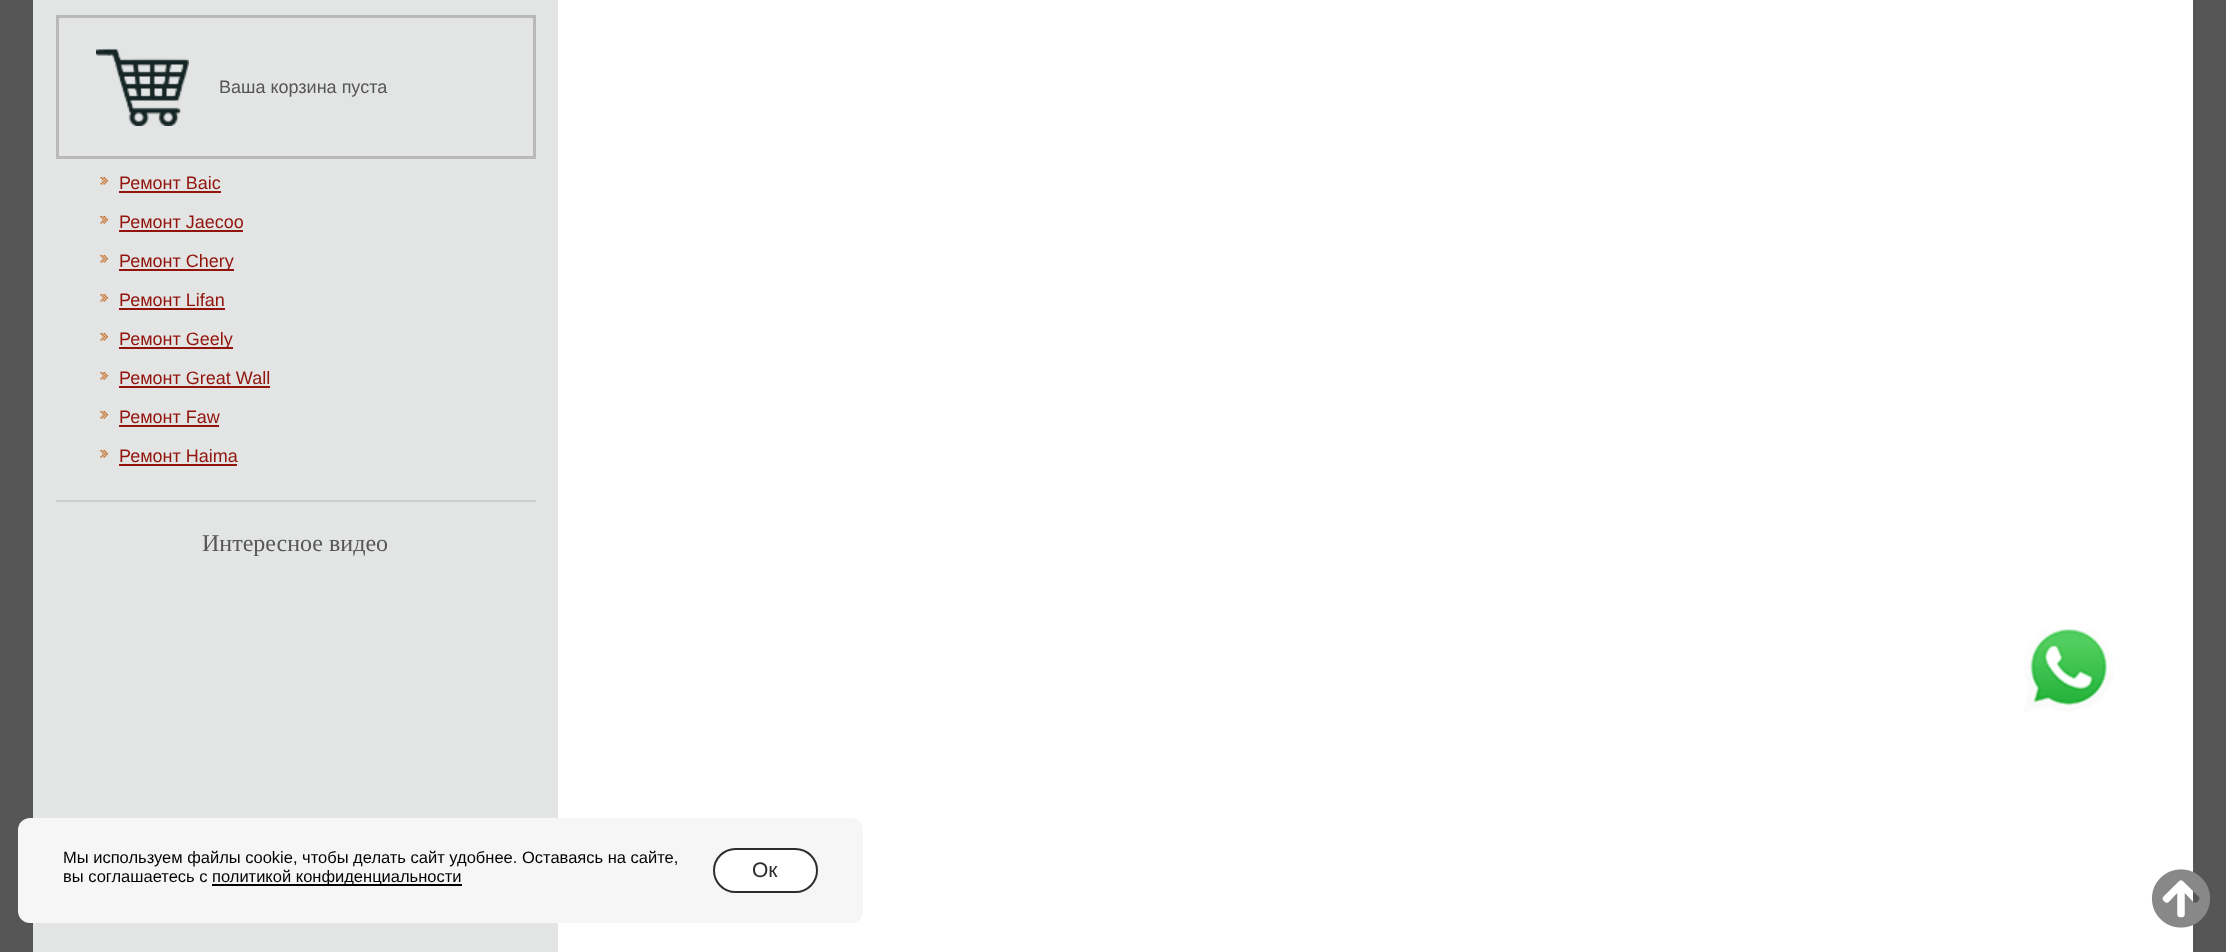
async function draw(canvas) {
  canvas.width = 2226
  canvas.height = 952
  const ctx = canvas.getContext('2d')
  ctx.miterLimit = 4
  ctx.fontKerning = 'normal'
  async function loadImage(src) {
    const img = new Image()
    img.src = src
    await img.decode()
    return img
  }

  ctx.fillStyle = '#565656'
  ctx.fillRect(0, 0, 2226, 952)
  ctx.fillStyle = '#e3e4e4'
  ctx.fillRect(33, 0, 525, 952)
  ctx.strokeStyle = '#b9b9bb'
  ctx.lineWidth = 3
  ctx.strokeRect(57.5, 16.5, 477, 141)
  ctx.drawImage(await loadImage('image0.png'), 96, 48, 93, 78)
  ctx.font = '18px Liberation Sans'
  ctx.fillStyle = '#565656'
  ctx.fillText('Ваша корзина пуста', 219, 93)
  ctx.drawImage(await loadImage('image1.png'), 100, 177, 8, 8)
  ctx.fillStyle = '#92140c'
  ctx.fillText('Ремонт Baic', 119, 189)
  ctx.fillRect(119, 191, 102, 2)
  ctx.drawImage(await loadImage('image1.png'), 100, 216, 8, 8)
  ctx.fillText('Ремонт Jaecoo', 119, 228)
  ctx.fillRect(119, 230, 124, 2)
  ctx.drawImage(await loadImage('image1.png'), 100, 255, 8, 8)
  ctx.fillRect(119, 269, 115, 2)
  ctx.fillText('Ремонт Chery', 119, 267)
  ctx.drawImage(await loadImage('image1.png'), 100, 294, 8, 8)
  ctx.fillText('Ремонт Lifan', 119, 306)
  ctx.fillRect(119, 308, 106, 2)
  ctx.drawImage(await loadImage('image1.png'), 100, 333, 8, 8)
  ctx.fillRect(119, 347, 114, 2)
  ctx.fillText('Ремонт Geely', 119, 345)
  ctx.drawImage(await loadImage('image1.png'), 100, 372, 8, 8)
  ctx.fillText('Ремонт Great Wall', 119, 384)
  ctx.fillRect(119, 386, 151, 2)
  ctx.drawImage(await loadImage('image1.png'), 100, 411, 8, 8)
  ctx.fillText('Ремонт Faw', 119, 423)
  ctx.fillRect(119, 425, 100, 2)
  ctx.drawImage(await loadImage('image1.png'), 100, 450, 8, 8)
  ctx.fillText('Ремонт Haima', 119, 462)
  ctx.fillRect(119, 464, 118, 2)
  ctx.fillStyle = '#cccdcd'
  ctx.fillRect(56, 500, 480, 2)
  ctx.font = '24px Liberation Serif'
  ctx.fillStyle = '#565656'
  ctx.fillText('Интересное видео', 202, 551)
  ctx.fillStyle = '#fff'
  ctx.fillRect(558, 0, 1635, 952)
  ctx.drawImage(await loadImage('image2.png'), 2024, 628, 89, 84)
  ctx.fillStyle = '#f6f6f6'
  ctx.beginPath()
  ctx.roundRect(18, 818, 845, 105, 12)
  ctx.fill()
  ctx.font = '16.5px Liberation Sans'
  ctx.fillStyle = '#000'
  ctx.fillText('Мы используем файлы cookie, чтобы делать сайт удобнее. Оставаясь на сайте,', 63, 863)
  ctx.fillText('вы соглашаетесь с', 63, 882)
  ctx.fillRect(212, 884, 250, 2)
  ctx.fillText('политикой конфиденциальности', 212, 882)
  ctx.fillStyle = '#fff'
  ctx.beginPath()
  ctx.roundRect(714, 849, 103, 43, 21.5)
  ctx.fill()
  ctx.strokeStyle = '#2d2d2d'
  ctx.lineWidth = 2
  ctx.stroke()
  ctx.font = '21px Liberation Sans'
  ctx.fillStyle = '#2d2d2d'
  ctx.fillText('Ок', 752, 877)
  ctx.drawImage(await loadImage('image3.png'), 2151, 869, 59, 59)
}

draw(document.querySelector('canvas'))
